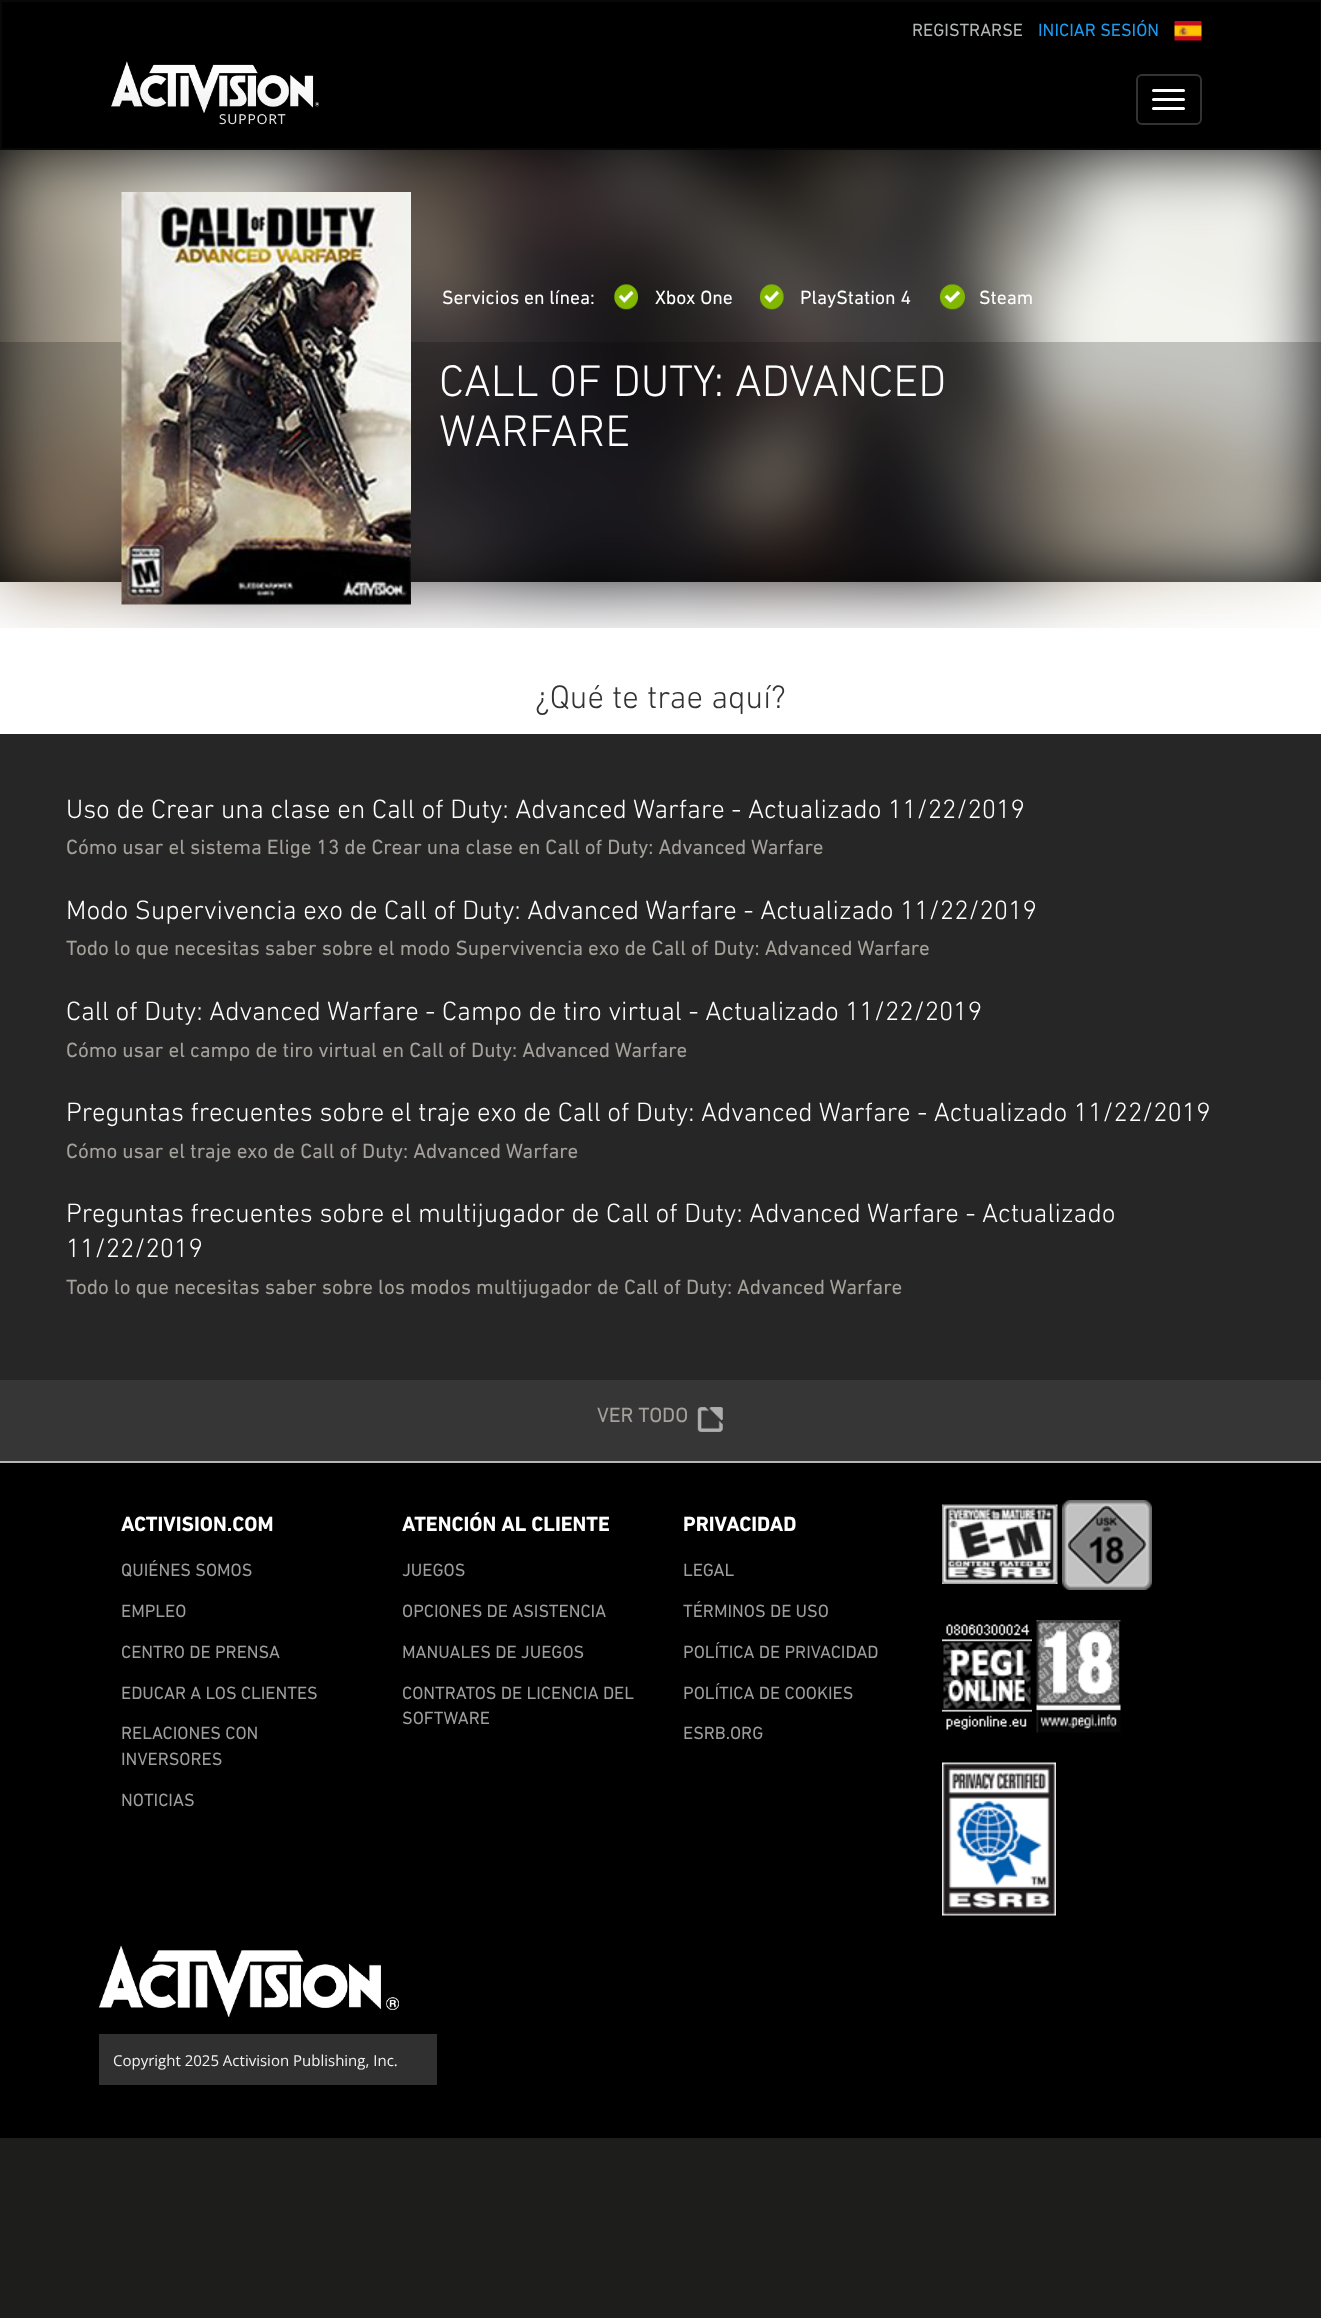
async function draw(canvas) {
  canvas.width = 1321
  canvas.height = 2318
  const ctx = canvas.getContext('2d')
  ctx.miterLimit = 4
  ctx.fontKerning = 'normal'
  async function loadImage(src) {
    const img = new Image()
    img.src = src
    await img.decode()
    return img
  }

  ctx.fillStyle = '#1d1d1c'
  ctx.fillRect(0, 0, 1321, 2318)
  ctx.fillStyle = '#000'
  ctx.beginPath()
  ctx.rect(1, 1, 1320, 148)
  ctx.fill()
  ctx.strokeStyle = '#080808'
  ctx.lineWidth = 2
  ctx.stroke()
  ctx.font = '18px DIN Next'
  ctx.fillStyle = '#b3b6b7'
  ctx.fillText('REGISTRARSE', 912, 36)
  ctx.fillStyle = '#1d9bf0'
  ctx.fillText('INICIAR SESIÓN', 1038, 36)
  ctx.drawImage(await loadImage('image0.png'), 1174, 21, 28, 20)
  ctx.drawImage(await loadImage('image1.png'), 111, 61, 208, 64)
  ctx.beginPath()
  ctx.roundRect(1137, 75, 64, 49, 5)
  ctx.strokeStyle = '#333'
  ctx.stroke()
  ctx.fillStyle = '#fff'
  ctx.beginPath()
  ctx.roundRect(1152, 89, 33, 3, 1.5)
  ctx.fill()
  ctx.beginPath()
  ctx.roundRect(1152, 98, 33, 3, 1.5)
  ctx.fill()
  ctx.beginPath()
  ctx.roundRect(1152, 107, 33, 3, 1.5)
  ctx.fill()
  ctx.fillStyle = '#262626'
  ctx.fillRect(0, 734, 1321, 646)
  ctx.fillStyle = '#000'
  ctx.fillRect(0, 150, 1321, 432)
  ctx.fillStyle = '#fff'
  ctx.fillRect(0, 582, 1321, 152)
  ctx.drawImage(await loadImage('image2.png'), 0, 150, 1321, 478)
  ctx.fillStyle = '#00000033'
  ctx.fillRect(0, 342, 1321, 240)
  ctx.drawImage(await loadImage('image3.png'), 121, 192, 290, 413)
  ctx.font = '19.5px DIN Next'
  ctx.fillStyle = '#fff'
  ctx.fillText('Servicios en línea:', 442, 304)
  ctx.drawImage(await loadImage('image4.png'), 614, 284, 24, 26)
  ctx.fillText('Xbox One', 655, 304)
  ctx.drawImage(await loadImage('image5.png'), 759, 284, 25, 26)
  ctx.fillText('PlayStation 4', 800, 304)
  ctx.drawImage(await loadImage('image6.png'), 939, 284, 26, 26)
  ctx.fillText('Steam', 979, 304)
  ctx.font = '300 45px DIN Next'
  ctx.fillText('CALL OF DUTY: ADVANCED', 439, 396)
  ctx.fillText('WARFARE', 439, 446)
  ctx.font = '300 33px DIN Next'
  ctx.fillStyle = '#333'
  ctx.fillText('¿Qué te trae aquí?', 535, 708)
  ctx.font = '300 27px DIN Next'
  ctx.fillStyle = '#fff'
  ctx.fillText('Uso de Crear una clase en Call of Duty: Advanced Warfare - Actualizado 11/22/2019', 66, 818)
  ctx.font = '21px DIN Next'
  ctx.fillStyle = '#a4a09a'
  ctx.fillText('Cómo usar el sistema Elige 13 de Crear una clase en Call of Duty: Advanced Warfare', 66, 854)
  ctx.font = '300 27px DIN Next'
  ctx.fillStyle = '#fff'
  ctx.fillText('Modo Supervivencia exo de Call of Duty: Advanced Warfare - Actualizado 11/22/2019', 66, 919)
  ctx.font = '21px DIN Next'
  ctx.fillStyle = '#a4a09a'
  ctx.fillText('Todo lo que necesitas saber sobre el modo Supervivencia exo de Call of Duty: Advanced Warfare', 66, 955)
  ctx.font = '300 27px DIN Next'
  ctx.fillStyle = '#fff'
  ctx.fillText('Call of Duty: Advanced Warfare - Campo de tiro virtual - Actualizado 11/22/2019', 66, 1020)
  ctx.font = '21px DIN Next'
  ctx.fillStyle = '#a4a09a'
  ctx.fillText('Cómo usar el campo de tiro virtual en Call of Duty: Advanced Warfare', 66, 1057)
  ctx.font = '300 27px DIN Next'
  ctx.fillStyle = '#fff'
  ctx.fillText('Preguntas frecuentes sobre el traje exo de Call of Duty: Advanced Warfare - Actualizado 11/22/2019', 66, 1121)
  ctx.font = '21px DIN Next'
  ctx.fillStyle = '#a4a09a'
  ctx.fillText('Cómo usar el traje exo de Call of Duty: Advanced Warfare', 66, 1158)
  ctx.font = '300 27px DIN Next'
  ctx.fillStyle = '#fff'
  ctx.fillText('Preguntas frecuentes sobre el multijugador de Call of Duty: Advanced Warfare - Actualizado', 66, 1222)
  ctx.fillText('11/22/2019', 66, 1257)
  ctx.font = '21px DIN Next'
  ctx.fillStyle = '#a4a09a'
  ctx.fillText('Todo lo que necesitas saber sobre los modos multijugador de Call of Duty: Advanced Warfare', 66, 1294)
  ctx.fillStyle = '#363636'
  ctx.fillRect(0, 1380, 1321, 81)
  ctx.fillStyle = '#a4a09a'
  ctx.fillText('VER TODO', 597, 1422)
  ctx.drawImage(await loadImage('image7.png'), 697, 1407, 26, 25)
  ctx.fillStyle = '#000'
  ctx.fillRect(0, 1463, 1321, 675)
  ctx.fillStyle = '#b3b6b7'
  ctx.fillRect(0, 1461, 1321, 2)
  ctx.font = 'bold 21px DIN Next'
  ctx.fillStyle = '#fff'
  ctx.fillText('ACTIVISION.COM', 121, 1531)
  ctx.font = '18px DIN Next'
  ctx.fillStyle = '#9d9d9d'
  ctx.fillText('QUIÉNES SOMOS', 121, 1576)
  ctx.fillText('EMPLEO', 121, 1617)
  ctx.fillText('CENTRO DE PRENSA', 121, 1658)
  ctx.fillText('EDUCAR A LOS CLIENTES', 121, 1699)
  ctx.fillText('RELACIONES CON', 121, 1739)
  ctx.fillText('INVERSORES', 121, 1765)
  ctx.fillText('NOTICIAS', 121, 1806)
  ctx.font = 'bold 21px DIN Next'
  ctx.fillStyle = '#fff'
  ctx.fillText('ATENCIÓN AL CLIENTE', 402, 1531)
  ctx.font = '18px DIN Next'
  ctx.fillStyle = '#9d9d9d'
  ctx.fillText('JUEGOS', 402, 1576)
  ctx.fillText('OPCIONES DE ASISTENCIA', 402, 1617)
  ctx.fillText('MANUALES DE JUEGOS', 402, 1658)
  ctx.fillText('CONTRATOS DE LICENCIA DEL', 402, 1699)
  ctx.fillText('SOFTWARE', 402, 1724)
  ctx.font = 'bold 21px DIN Next'
  ctx.fillStyle = '#fff'
  ctx.fillText('PRIVACIDAD', 683, 1531)
  ctx.font = '18px DIN Next'
  ctx.fillStyle = '#9d9d9d'
  ctx.fillText('LEGAL', 683, 1576)
  ctx.fillText('TÉRMINOS DE USO', 683, 1617)
  ctx.fillText('POLÍTICA DE PRIVACIDAD', 683, 1658)
  ctx.fillText('POLÍTICA DE COOKIES', 683, 1699)
  ctx.fillText('ESRB.ORG', 683, 1739)
  ctx.drawImage(await loadImage('image8.png'), 942, 1504, 116, 80)
  ctx.drawImage(await loadImage('image9.png'), 1062, 1500, 90, 90)
  ctx.drawImage(await loadImage('image10.png'), 942, 1624, 90, 106)
  ctx.drawImage(await loadImage('image11.png'), 1036, 1620, 85, 113)
  ctx.drawImage(await loadImage('image12.png'), 942, 1762, 114, 154)
  ctx.drawImage(await loadImage('image13.png'), 99, 1945, 300, 72)
  ctx.fillStyle = '#303030'
  ctx.fillRect(99, 2034, 338, 51)
  ctx.font = '15px Open Sans'
  ctx.fillStyle = '#f2f2f2'
  ctx.fillText('Copyright 2025 Activision Publishing, Inc.', 113, 2066)
}

draw(document.querySelector('canvas'))
